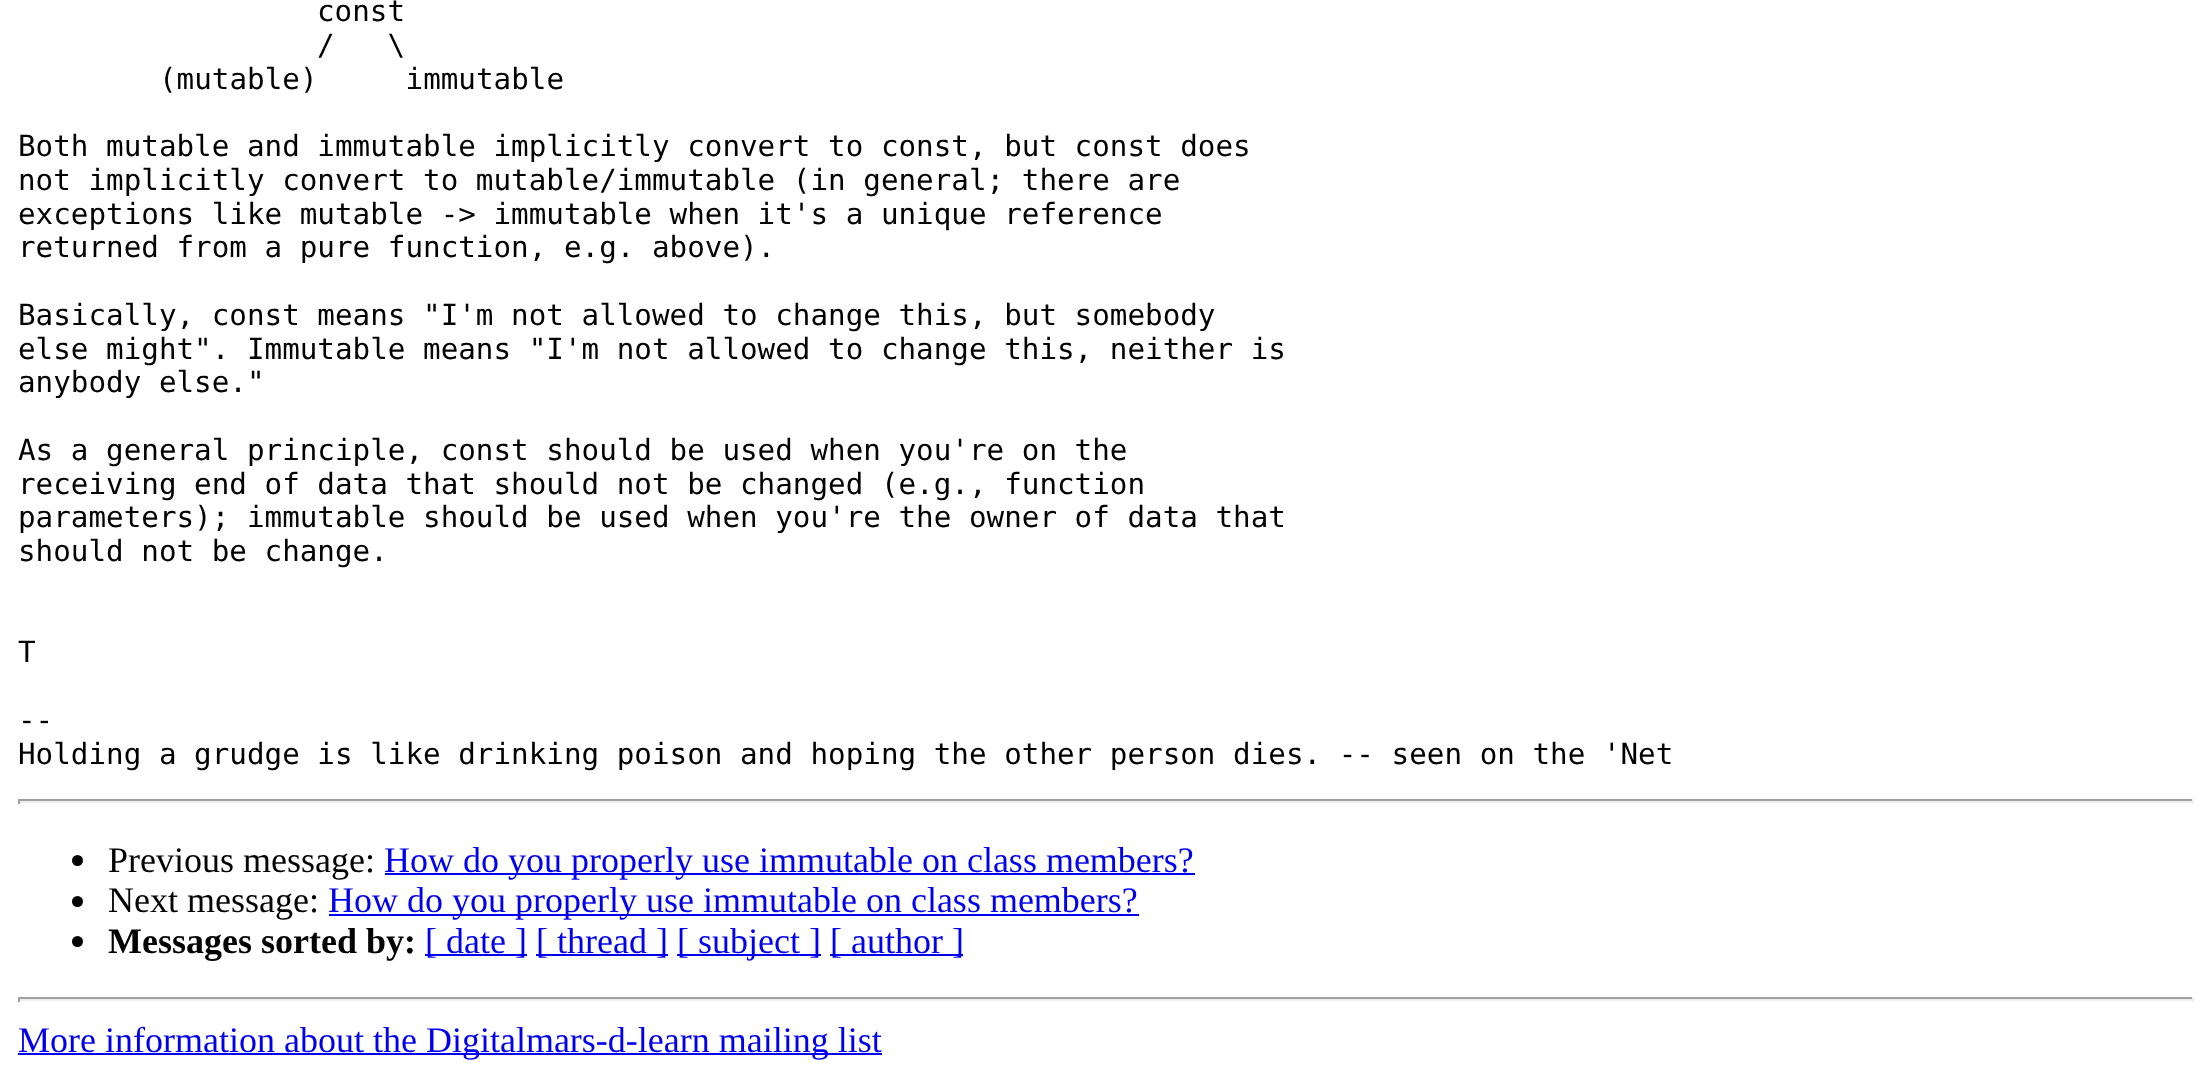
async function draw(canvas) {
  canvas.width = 2210
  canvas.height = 1076
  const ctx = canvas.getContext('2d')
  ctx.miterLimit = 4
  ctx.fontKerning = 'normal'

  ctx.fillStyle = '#fff'
  ctx.fillRect(0, 0, 2210, 1076)
  ctx.font = '29.25px DejaVu Sans Mono'
  ctx.fillStyle = '#000'
  ctx.fillText('const', 317, 21)
  ctx.fillText('/   \\', 317, 55)
  ctx.fillText('(mutable)     immutable', 159, 89)
  ctx.fillText('Both mutable and immutable implicitly convert to const, but const does', 18, 156)
  ctx.fillText('not implicitly convert to mutable/immutable (in general; there are', 18, 190)
  ctx.fillText('exceptions like mutable -> immutable when it\'s a unique reference', 18, 224)
  ctx.fillText('returned from a pure function, e.g. above).', 18, 257)
  ctx.fillText('Basically, const means "I\'m not allowed to change this, but somebody', 18, 325)
  ctx.fillText('else might". Immutable means "I\'m not allowed to change this, neither is', 18, 359)
  ctx.fillText('anybody else."', 18, 392)
  ctx.fillText('As a general principle, const should be used when you\'re on the', 18, 460)
  ctx.fillText('receiving end of data that should not be changed (e.g., function', 18, 494)
  ctx.fillText('parameters); immutable should be used when you\'re the owner of data that', 18, 527)
  ctx.fillText('should not be change.', 18, 561)
  ctx.fillText('T', 18, 662)
  ctx.fillText('--', 18, 730)
  ctx.fillText('Holding a grudge is like drinking poison and hoping the other person dies. -- seen on the \'Net', 18, 764)
  ctx.fillStyle = '#9f9f9f'
  ctx.fillRect(18, 799, 2176, 2)
  ctx.fillStyle = '#eee'
  ctx.fillRect(2192, 799, 2, 5)
  ctx.fillRect(18, 801, 2176, 2)
  ctx.fillStyle = '#9f9f9f'
  ctx.fillRect(18, 799, 2, 5)
  ctx.fillStyle = '#000'
  ctx.beginPath()
  ctx.arc(77.5, 860.5, 5.5, 0, 2 * Math.PI)
  ctx.fill()
  ctx.font = '36px Liberation Serif'
  ctx.fillText('Previous message:', 108, 872)
  ctx.fillStyle = '#00e'
  ctx.fillRect(385, 873, 810, 2)
  ctx.fillText('How do you properly use immutable on class members?', 384, 872)
  ctx.fillStyle = '#000'
  ctx.beginPath()
  ctx.arc(77.5, 901.5, 5.5, 0, 2 * Math.PI)
  ctx.fill()
  ctx.fillText('Next message:', 108, 912)
  ctx.fillStyle = '#00e'
  ctx.fillRect(329, 914, 810, 2)
  ctx.fillText('How do you properly use immutable on class members?', 328, 912)
  ctx.fillStyle = '#000'
  ctx.beginPath()
  ctx.arc(77.5, 941.5, 5.5, 0, 2 * Math.PI)
  ctx.fill()
  ctx.font = 'bold 36px Liberation Serif'
  ctx.fillText('Messages sorted by:', 108, 953)
  ctx.fillStyle = '#00e'
  ctx.fillRect(425, 954, 102, 2)
  ctx.font = '36px Liberation Serif'
  ctx.fillText('[ date ]', 425, 953)
  ctx.fillRect(536, 954, 132, 2)
  ctx.fillText('[ thread ]', 536, 953)
  ctx.fillRect(677, 954, 144, 2)
  ctx.fillText('[ subject ]', 677, 953)
  ctx.fillRect(830, 954, 133, 2)
  ctx.fillText('[ author ]', 830, 953)
  ctx.fillStyle = '#9f9f9f'
  ctx.fillRect(18, 997, 2176, 2)
  ctx.fillStyle = '#eee'
  ctx.fillRect(2192, 997, 2, 5)
  ctx.fillRect(18, 999, 2176, 2)
  ctx.fillStyle = '#9f9f9f'
  ctx.fillRect(18, 997, 2, 5)
  ctx.fillStyle = '#00e'
  ctx.fillRect(18, 1053, 864, 2)
  ctx.fillText('More information about the Digitalmars-d-learn mailing list', 18, 1052)
}

draw(document.querySelector('canvas'))
